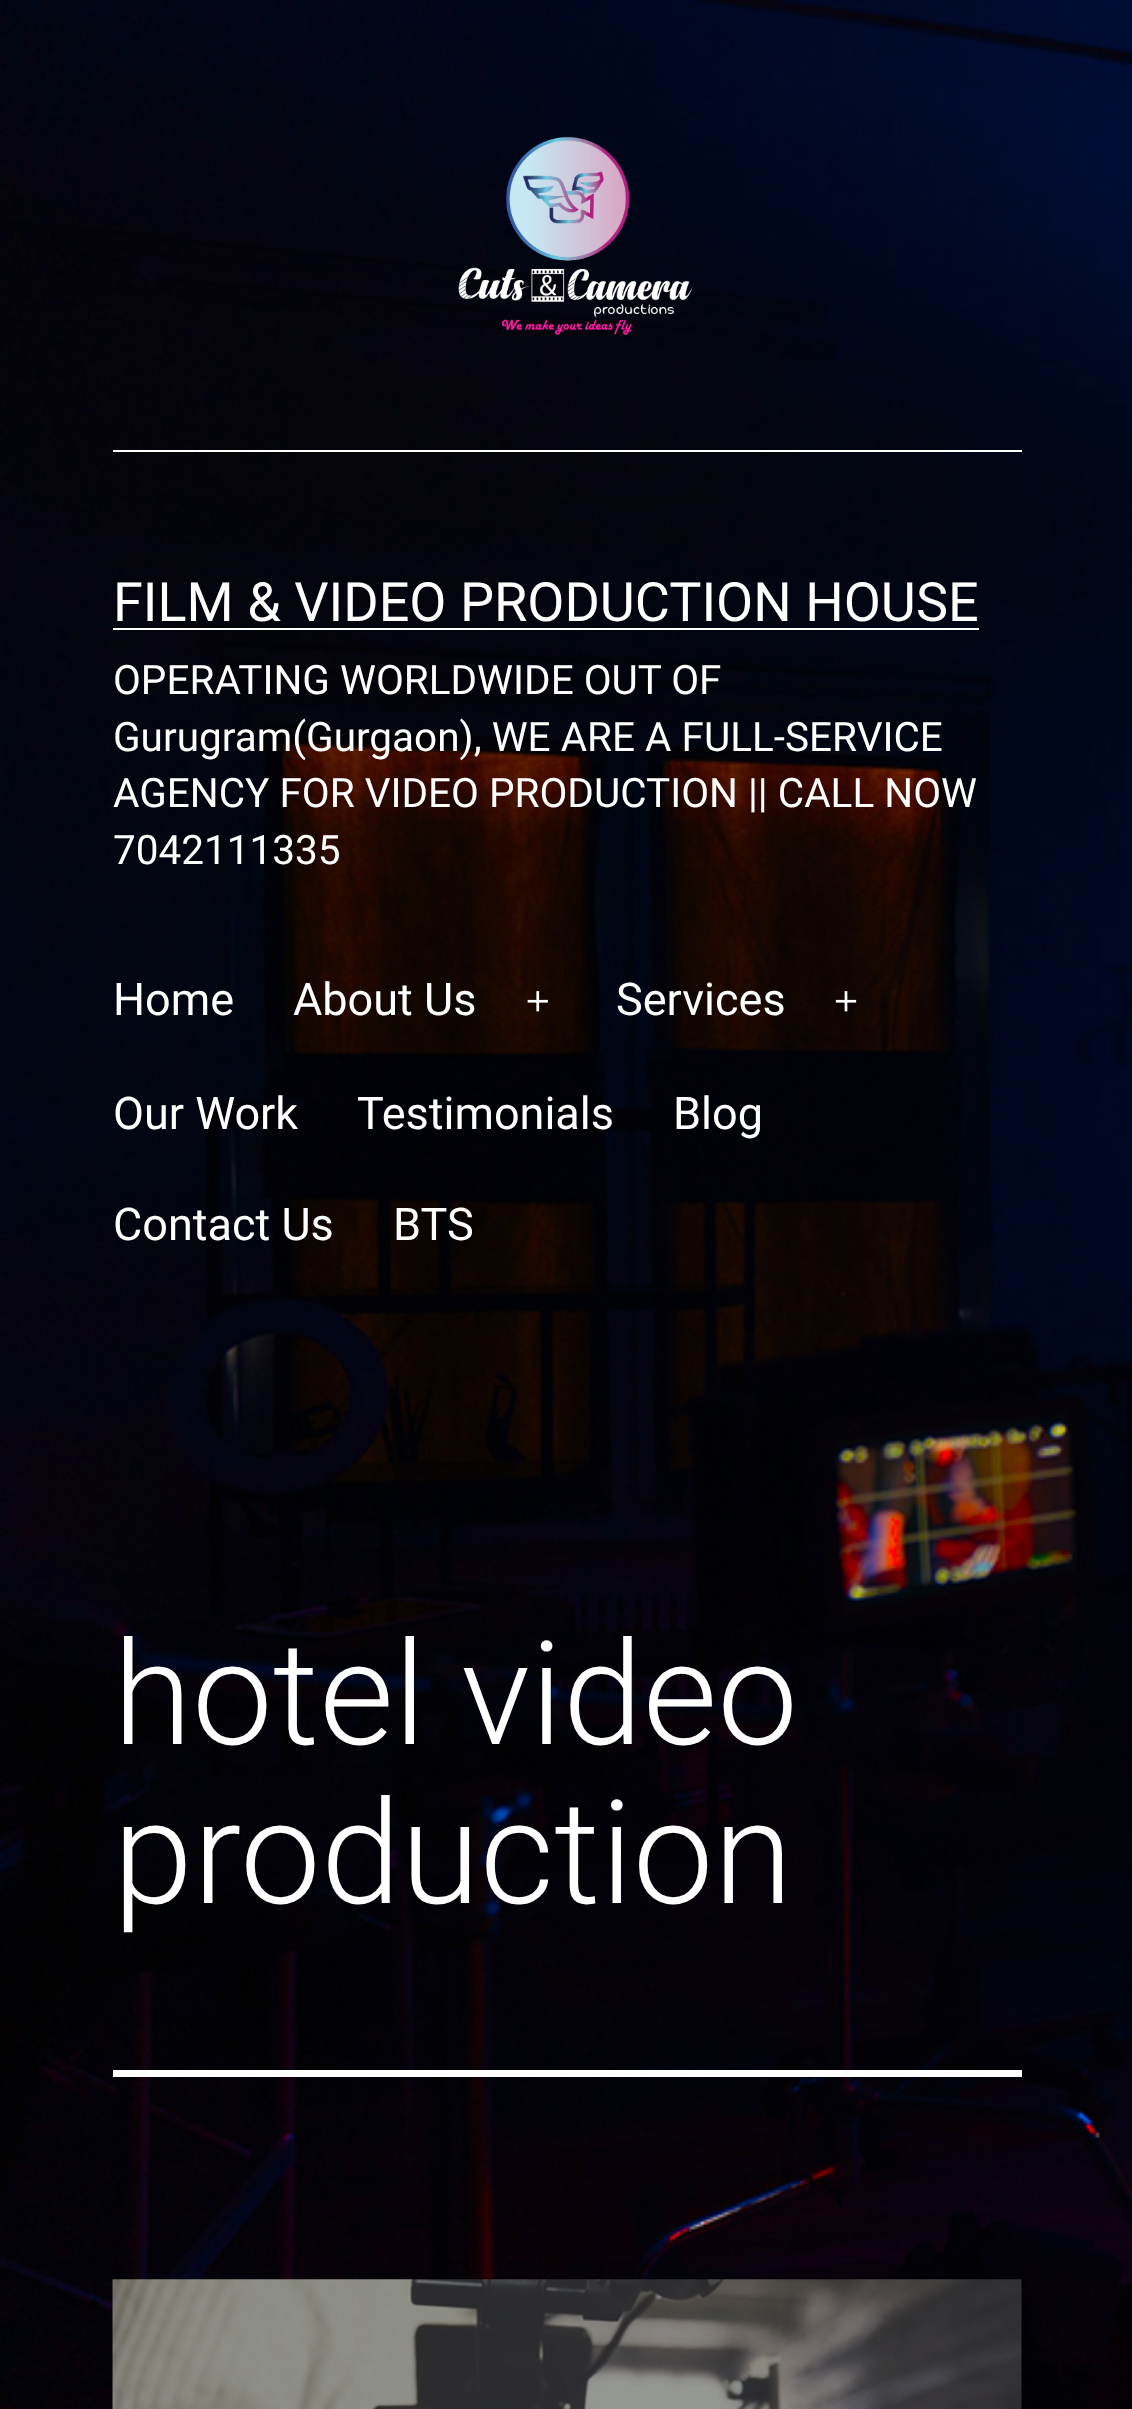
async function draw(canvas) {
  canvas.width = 1132
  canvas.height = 2409
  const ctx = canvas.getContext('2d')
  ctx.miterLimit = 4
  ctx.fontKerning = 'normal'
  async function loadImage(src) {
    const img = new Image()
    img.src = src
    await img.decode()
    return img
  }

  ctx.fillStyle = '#fff'
  ctx.fillRect(0, 0, 1132, 2409)
  ctx.drawImage(await loadImage('image0.png'), 0, 0, 1132, 2409)
  ctx.fillRect(113, 450, 909, 2)
  ctx.drawImage(await loadImage('image1.png'), 458, 136, 235, 199)
  ctx.font = '54px Roboto'
  ctx.fillText('FILM & VIDEO PRODUCTION HOUSE', 113, 621)
  ctx.fillRect(113, 628, 866, 2)
  ctx.font = '40.5px Roboto'
  ctx.fillText('OPERATING WORLDWIDE OUT OF', 113, 694)
  ctx.fillText('Gurugram(Gurgaon), WE ARE A FULL-SERVICE', 113, 751)
  ctx.fillText('AGENCY FOR VIDEO PRODUCTION || CALL NOW', 113, 807)
  ctx.fillText('7042111335', 113, 864)
  ctx.font = '45px Roboto'
  ctx.fillText('Home', 113, 1015)
  ctx.fillText('About Us', 293, 1015)
  ctx.drawImage(await loadImage('image2.png'), 527, 991, 21, 21)
  ctx.fillText('Services', 616, 1015)
  ctx.drawImage(await loadImage('image3.png'), 835, 991, 22, 21)
  ctx.fillText('Our Work', 113, 1129)
  ctx.fillText('Testimonials', 357, 1129)
  ctx.fillText('Blog', 673, 1129)
  ctx.fillText('Contact Us', 113, 1240)
  ctx.fillText('BTS', 393, 1240)
  ctx.fillRect(113, 2070, 909, 7)
  ctx.font = '300 144px Roboto'
  ctx.fillText('hotel video', 113, 1744)
  ctx.fillText('production', 113, 1903)
  ctx.drawImage(await loadImage('image4.png'), 112, 2279, 910, 130)
}

draw(document.querySelector('canvas'))
